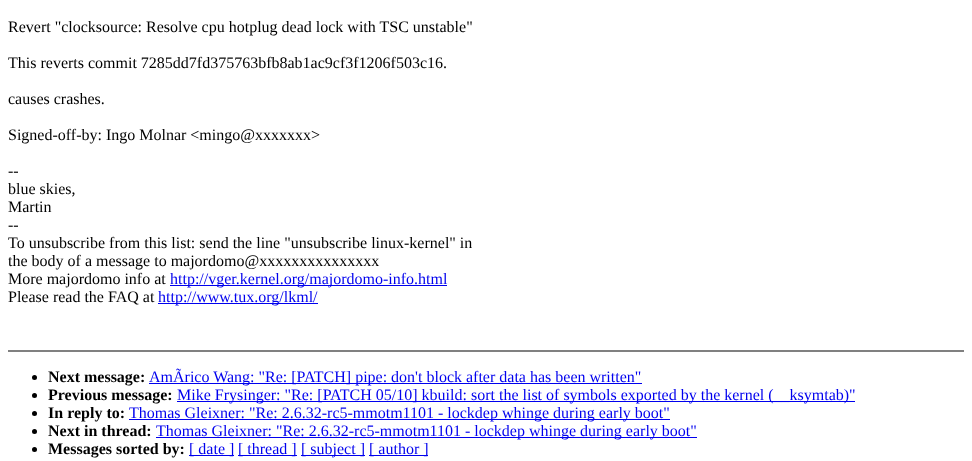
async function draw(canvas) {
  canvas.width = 972
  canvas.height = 461
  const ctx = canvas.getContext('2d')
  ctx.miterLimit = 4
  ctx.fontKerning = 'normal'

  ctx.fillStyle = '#fff'
  ctx.fillRect(0, 0, 972, 461)
  ctx.font = '16px Liberation Serif'
  ctx.fillStyle = '#000'
  ctx.fillText('Revert "clocksource: Resolve cpu hotplug dead lock with TSC unstable"', 8, 32)
  ctx.fillText('This reverts commit 7285dd7fd375763bfb8ab1ac9cf3f1206f503c16.', 8, 68)
  ctx.fillText('causes crashes.', 8, 104)
  ctx.fillText('Signed-off-by: Ingo Molnar <mingo@xxxxxxx>', 8, 140)
  ctx.fillText('--', 8, 176)
  ctx.fillText('blue skies,', 8, 194)
  ctx.fillText('Martin', 8, 212)
  ctx.fillText('--', 8, 230)
  ctx.fillText('To unsubscribe from this list: send the line "unsubscribe linux-kernel" in', 8, 248)
  ctx.fillText('the body of a message to majordomo@xxxxxxxxxxxxxxx', 8, 266)
  ctx.fillText('More majordomo info at', 8, 284)
  ctx.fillStyle = '#00e'
  ctx.fillRect(170, 285, 277, 1)
  ctx.fillText('http://vger.kernel.org/majordomo-info.html', 170, 284)
  ctx.fillStyle = '#000'
  ctx.fillText('Please read the FAQ at', 8, 302)
  ctx.fillStyle = '#00e'
  ctx.fillRect(158, 303, 160, 1)
  ctx.fillText('http://www.tux.org/lkml/', 158, 302)
  ctx.fillStyle = '#808080'
  ctx.fillRect(8, 350, 956, 2)
  ctx.fillStyle = '#000'
  ctx.beginPath()
  ctx.arc(34.5, 377.5, 2.5, 0, 2 * Math.PI)
  ctx.fill()
  ctx.font = 'bold 16px Liberation Serif'
  ctx.fillText('Next message:', 48, 382)
  ctx.fillStyle = '#00e'
  ctx.fillRect(149, 383, 493, 1)
  ctx.font = '16px Liberation Serif'
  ctx.fillText('AmÃrico Wang: "Re: [PATCH] pipe: don\'t block after data has been written"', 149, 382)
  ctx.fillStyle = '#000'
  ctx.beginPath()
  ctx.arc(34.5, 395.5, 2.5, 0, 2 * Math.PI)
  ctx.fill()
  ctx.font = 'bold 16px Liberation Serif'
  ctx.fillText('Previous message:', 48, 400)
  ctx.fillStyle = '#00e'
  ctx.fillRect(177, 401, 678, 1)
  ctx.font = '16px Liberation Serif'
  ctx.fillText('Mike Frysinger: "Re: [PATCH 05/10] kbuild: sort the list of symbols exported by the kernel (__ksymtab)"', 177, 400)
  ctx.fillStyle = '#000'
  ctx.beginPath()
  ctx.arc(34.5, 413.5, 2.5, 0, 2 * Math.PI)
  ctx.fill()
  ctx.font = 'bold 16px Liberation Serif'
  ctx.fillText('In reply to:', 48, 418)
  ctx.fillStyle = '#00e'
  ctx.fillRect(129, 419, 541, 1)
  ctx.font = '16px Liberation Serif'
  ctx.fillText('Thomas Gleixner: "Re: 2.6.32-rc5-mmotm1101 - lockdep whinge during early boot"', 129, 418)
  ctx.fillStyle = '#000'
  ctx.beginPath()
  ctx.arc(34.5, 431.5, 2.5, 0, 2 * Math.PI)
  ctx.fill()
  ctx.font = 'bold 16px Liberation Serif'
  ctx.fillText('Next in thread:', 48, 436)
  ctx.fillStyle = '#00e'
  ctx.fillRect(156, 437, 541, 1)
  ctx.font = '16px Liberation Serif'
  ctx.fillText('Thomas Gleixner: "Re: 2.6.32-rc5-mmotm1101 - lockdep whinge during early boot"', 156, 436)
  ctx.fillStyle = '#000'
  ctx.beginPath()
  ctx.arc(34.5, 449.5, 2.5, 0, 2 * Math.PI)
  ctx.fill()
  ctx.font = 'bold 16px Liberation Serif'
  ctx.fillText('Messages sorted by:', 48, 454)
  ctx.fillStyle = '#00e'
  ctx.fillRect(189, 455, 45, 1)
  ctx.font = '16px Liberation Serif'
  ctx.fillText('[ date ]', 189, 454)
  ctx.fillRect(238, 455, 59, 1)
  ctx.fillText('[ thread ]', 238, 454)
  ctx.fillRect(301, 455, 64, 1)
  ctx.fillText('[ subject ]', 301, 454)
  ctx.fillRect(369, 455, 59, 1)
  ctx.fillText('[ author ]', 369, 454)
}

draw(document.querySelector('canvas'))
